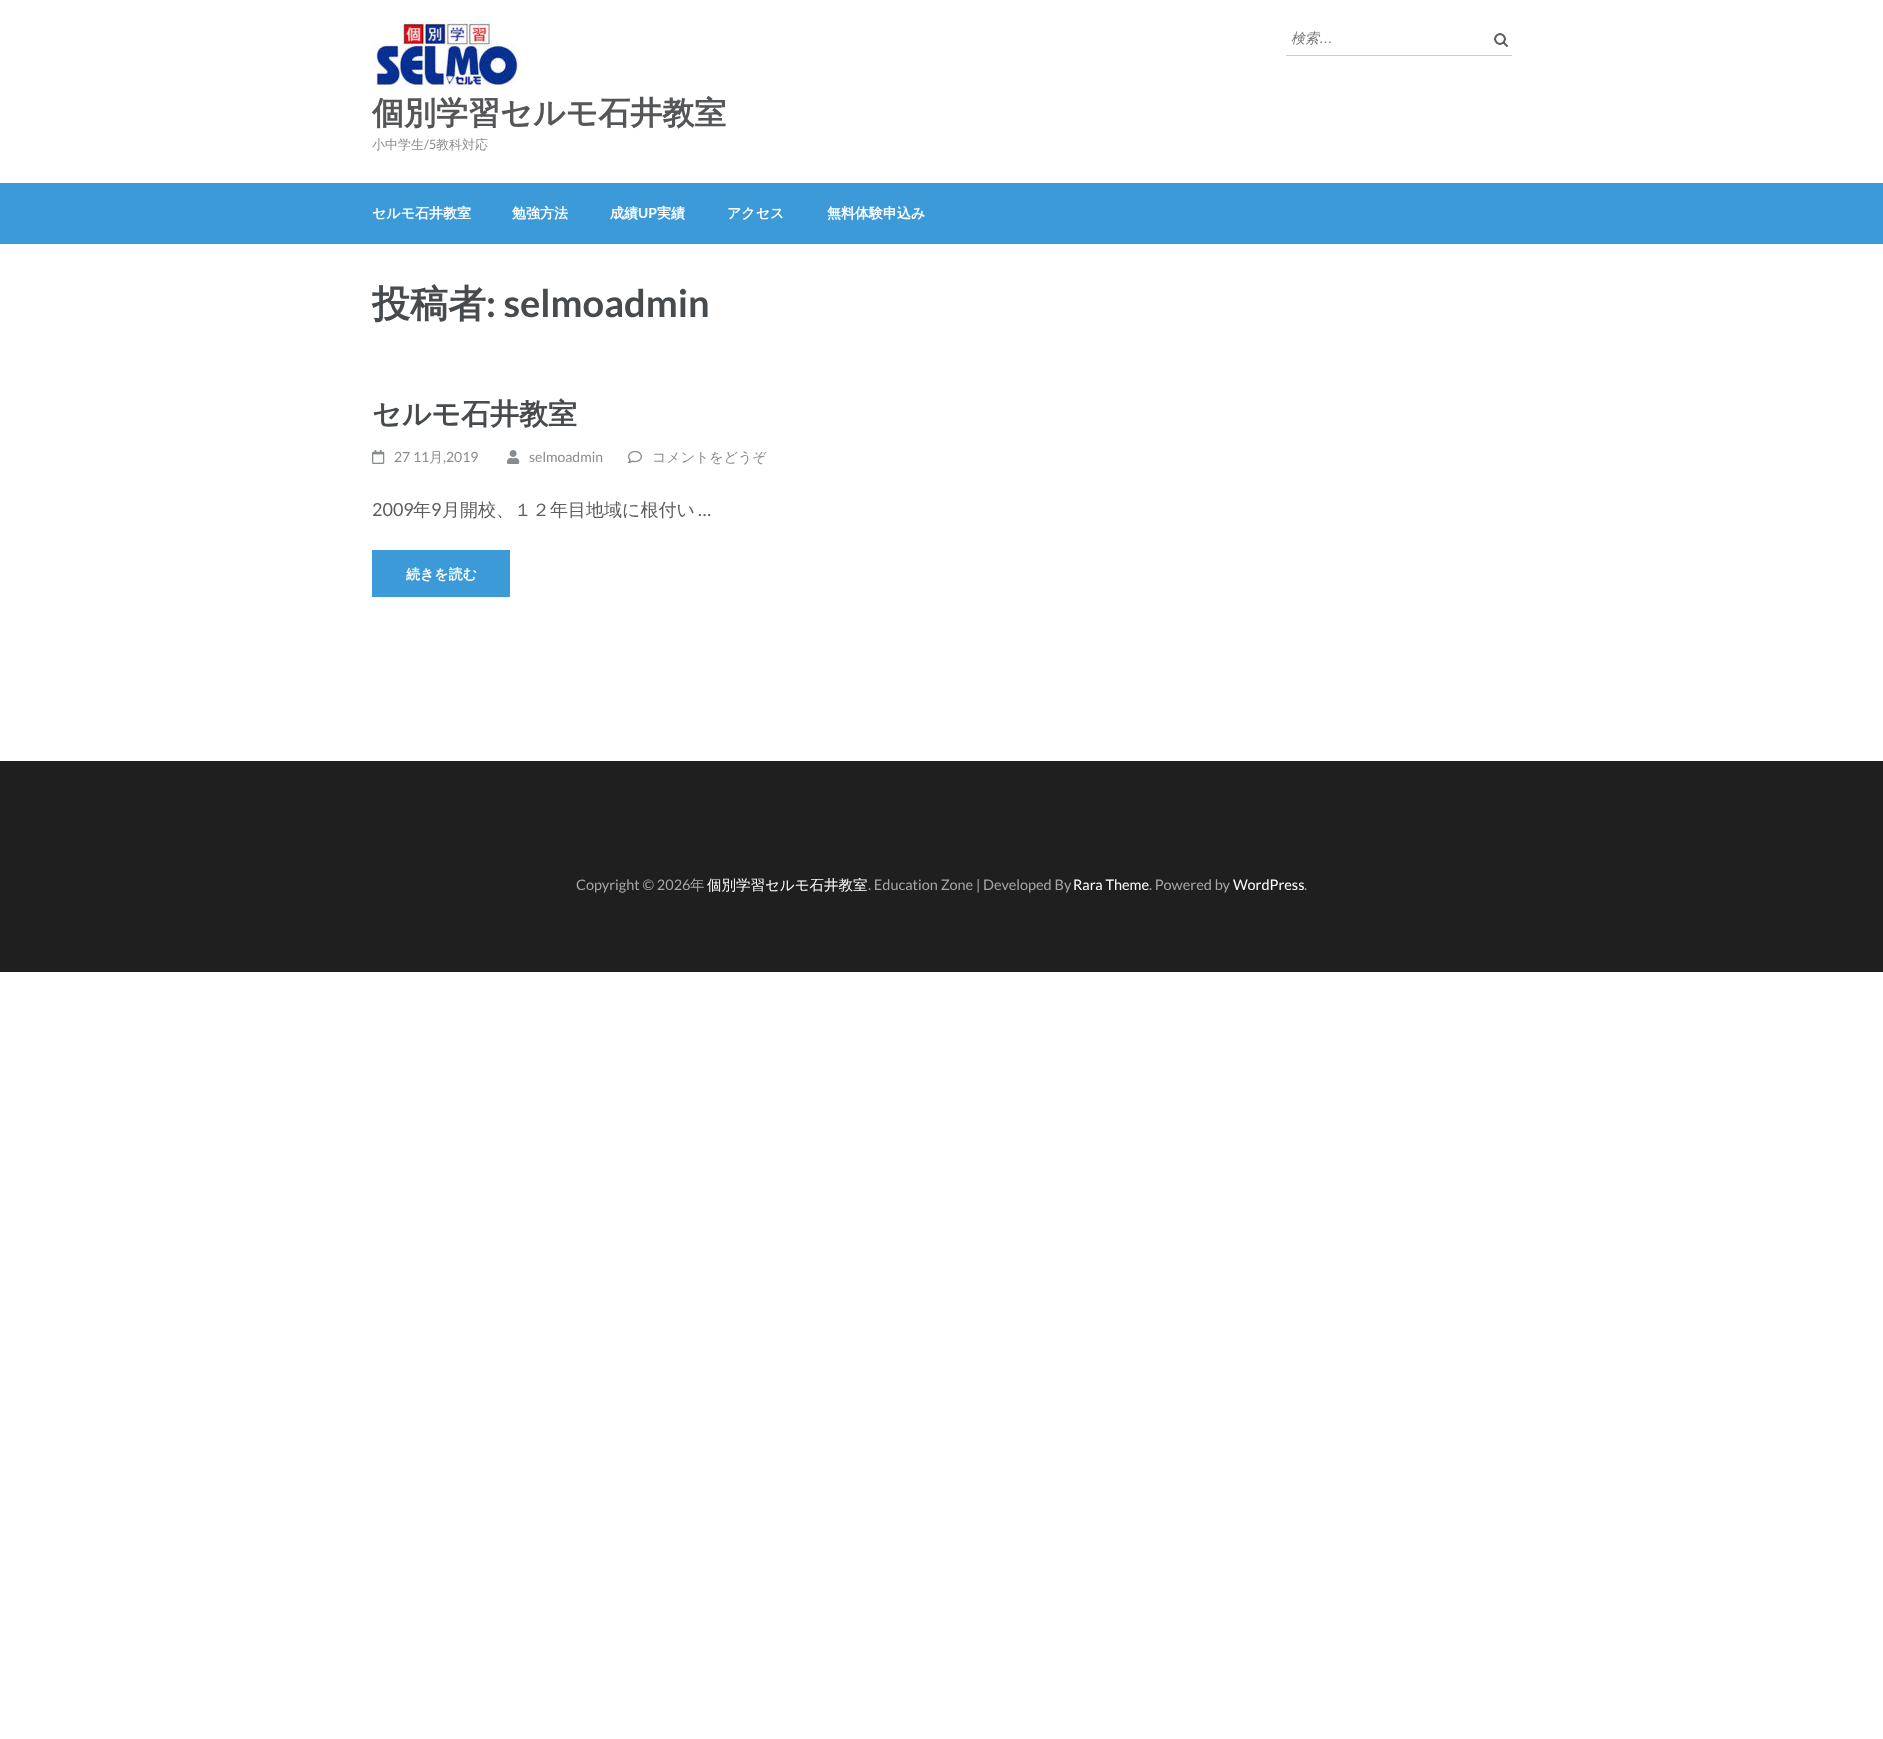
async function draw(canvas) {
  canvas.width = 1883
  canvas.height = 1739
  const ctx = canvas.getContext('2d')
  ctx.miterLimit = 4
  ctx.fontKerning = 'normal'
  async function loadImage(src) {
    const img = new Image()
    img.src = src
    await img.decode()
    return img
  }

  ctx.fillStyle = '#fff'
  ctx.fillRect(0, 0, 1883, 1739)
  ctx.fillStyle = '#ccc'
  ctx.fillRect(1286, 55, 226, 1)
  ctx.font = 'italic 500 14px WenQuanYi Zen Hei'
  ctx.fillStyle = '#757575'
  ctx.fillText('検索', 1291, 43)
  ctx.font = 'italic 14px Liberation Sans'
  ctx.fillText('…', 1319, 43)
  ctx.drawImage(await loadImage('image0.png'), 1494, 33, 14, 14)
  ctx.drawImage(await loadImage('image1.png'), 372, 20, 150, 69)
  ctx.font = 'bold 32px WenQuanYi Zen Hei'
  ctx.fillStyle = '#555658'
  ctx.fillText('個別学習セルモ石井教室', 372, 124)
  ctx.font = '500 13px WenQuanYi Zen Hei'
  ctx.fillStyle = '#8c8c8c'
  ctx.fillText('小中学生', 372, 149)
  ctx.font = '13px Lato'
  ctx.fillText('/5', 424, 149)
  ctx.font = '500 13px WenQuanYi Zen Hei'
  ctx.fillText('教科対応', 436, 149)
  ctx.fillStyle = '#3b9ad7'
  ctx.fillRect(0, 183, 1883, 61)
  ctx.font = 'bold 14px WenQuanYi Zen Hei'
  ctx.fillStyle = '#fff'
  ctx.fillText('セルモ石井教室', 372, 218)
  ctx.fillText('勉強方法', 512, 218)
  ctx.fillText('成績', 610, 218)
  ctx.font = 'bold 14px Lato'
  ctx.fillText('UP', 638, 218)
  ctx.font = 'bold 14px WenQuanYi Zen Hei'
  ctx.fillText('実績', 657, 218)
  ctx.fillText('アクセス', 727, 218)
  ctx.fillText('無料体験申込み', 827, 218)
  ctx.font = 'bold 38px WenQuanYi Zen Hei'
  ctx.fillStyle = '#474b4e'
  ctx.fillText('投稿者', 372, 317)
  ctx.font = 'bold 38px Lato'
  ctx.fillText(': selmoadmin', 486, 317)
  ctx.font = 'bold 29px WenQuanYi Zen Hei'
  ctx.fillText('セルモ石井教室', 372, 424)
  ctx.drawImage(await loadImage('image2.png'), 372, 450, 13, 14)
  ctx.font = '14px Lato'
  ctx.fillStyle = '#8c8c8c'
  ctx.fillText('27 11', 394, 462)
  ctx.font = '500 14px WenQuanYi Zen Hei'
  ctx.fillText('月', 429, 462)
  ctx.font = '14px Lato'
  ctx.fillText(',2019', 443, 462)
  ctx.drawImage(await loadImage('image3.png'), 507, 450, 13, 14)
  ctx.fillText('selmoadmin', 529, 462)
  ctx.drawImage(await loadImage('image4.png'), 628, 450, 14, 14)
  ctx.font = '500 14px WenQuanYi Zen Hei'
  ctx.fillText('コメントをどうぞ', 652, 462)
  ctx.font = '18px Lato'
  ctx.fillStyle = '#5d5d5d'
  ctx.fillText('2009', 372, 516)
  ctx.font = '500 18px WenQuanYi Zen Hei'
  ctx.fillText('年', 413, 516)
  ctx.font = '18px Lato'
  ctx.fillText('9', 431, 516)
  ctx.font = '500 18px WenQuanYi Zen Hei'
  ctx.fillText('月開校、１２年目地域に根付い', 442, 516)
  ctx.font = '18px Lato'
  ctx.fillText('…', 698, 516)
  ctx.fillStyle = '#3b9ad7'
  ctx.fillRect(372, 550, 138, 47)
  ctx.font = 'bold 14px WenQuanYi Zen Hei'
  ctx.fillStyle = '#fff'
  ctx.fillText('続きを読む', 406, 579)
  ctx.fillStyle = '#1f1f1f'
  ctx.fillRect(0, 761, 1883, 211)
  ctx.font = '14.5px Lato'
  ctx.fillStyle = '#a6a6a6'
  ctx.fillText('Copyright © 2026', 576, 890)
  ctx.font = '500 14.5px WenQuanYi Zen Hei'
  ctx.fillText('年', 690, 890)
  ctx.fillStyle = '#fff'
  ctx.fillText('個別学習セルモ石井教室', 707, 890)
  ctx.font = '14.5px Lato'
  ctx.fillStyle = '#a6a6a6'
  ctx.fillText('. Education Zone | Developed By', 868, 890)
  ctx.fillStyle = '#fff'
  ctx.fillText('Rara Theme', 1073, 890)
  ctx.fillStyle = '#a6a6a6'
  ctx.fillText('. Powered by', 1149, 890)
  ctx.fillStyle = '#fff'
  ctx.fillText('WordPress', 1233, 890)
  ctx.fillStyle = '#a6a6a6'
  ctx.fillText('.', 1304, 890)
}

draw(document.querySelector('canvas'))
